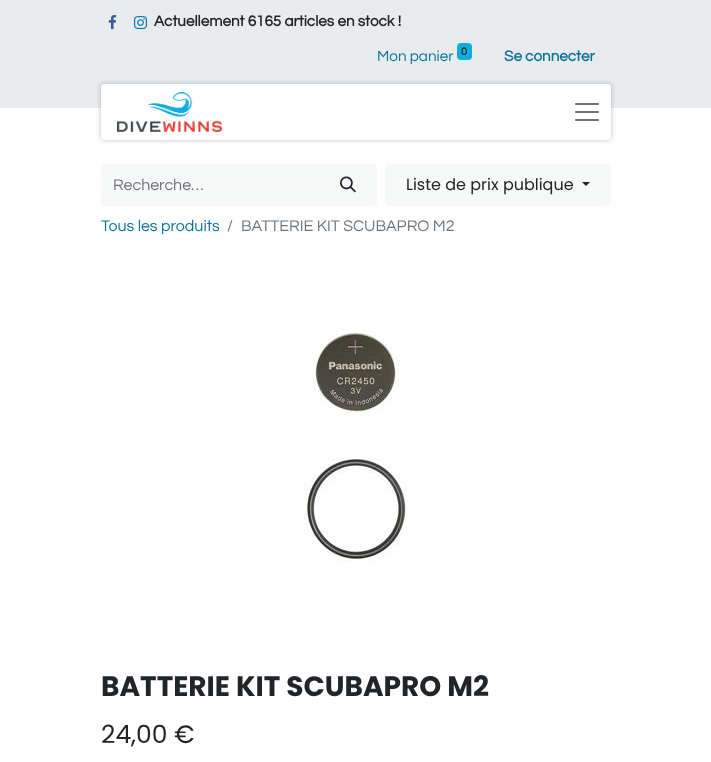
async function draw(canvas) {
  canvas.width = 711
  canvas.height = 762
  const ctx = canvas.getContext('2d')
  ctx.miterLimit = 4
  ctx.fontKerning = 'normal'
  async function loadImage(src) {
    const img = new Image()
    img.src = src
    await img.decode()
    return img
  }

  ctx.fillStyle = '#fff'
  ctx.fillRect(0, 0, 711, 762)
  ctx.fillStyle = '#e9ecef'
  ctx.fillRect(0, 0, 711, 108)
  ctx.drawImage(await loadImage('image0.png'), 108, 15, 9, 15)
  ctx.drawImage(await loadImage('image1.png'), 134, 16, 14, 14)
  ctx.font = 'bold 15.25px Questrial'
  ctx.fillStyle = '#212529'
  ctx.fillText('Actuellement 6165 articles en stock !', 154, 26)
  ctx.font = '15.25px Questrial'
  ctx.fillStyle = '#0c7596'
  ctx.fillText('Mon panier', 377, 61)
  ctx.fillStyle = '#11addd'
  ctx.beginPath()
  ctx.roundRect(457, 43, 15, 17, 4)
  ctx.fill()
  ctx.font = 'bold 11px Questrial'
  ctx.fillStyle = '#212529'
  ctx.fillText('0', 461, 55)
  ctx.font = 'bold 15.25px Questrial'
  ctx.fillStyle = '#0c7596'
  ctx.fillText('Se connecter', 504, 61)
  ctx.fillStyle = '#00000040'
  ctx.filter = 'blur(2.5px)'
  ctx.beginPath()
  ctx.roundRect(101, 84, 510, 56, 4)
  ctx.fill()
  ctx.filter = 'none'
  ctx.fillStyle = '#fff'
  ctx.beginPath()
  ctx.roundRect(101, 84, 510, 56, 4)
  ctx.fill()
  ctx.drawImage(await loadImage('image2.png'), 117, 92, 105, 40)
  ctx.drawImage(await loadImage('image3.png'), 575, 103, 24, 18)
  ctx.fillStyle = '#f7f8f8'
  ctx.beginPath()
  ctx.roundRect(101, 164, 219, 42, [4, 0, 0, 4])
  ctx.fill()
  ctx.font = '16px Questrial'
  ctx.fillStyle = '#6c757d'
  ctx.fillText('Recherche…', 113, 190)
  ctx.fillStyle = '#f7f8f8'
  ctx.beginPath()
  ctx.roundRect(319, 164, 58, 42, [0, 4, 4, 0])
  ctx.fill()
  ctx.drawImage(await loadImage('image4.png'), 340, 176, 16, 17)
  ctx.beginPath()
  ctx.roundRect(385, 164, 226, 42, 5)
  ctx.fill()
  ctx.font = '16px Poppins'
  ctx.fillStyle = '#212529'
  ctx.fillText('Liste de prix publique', 406, 190)
  ctx.beginPath()
  ctx.moveTo(582, 182)
  ctx.lineTo(590, 182)
  ctx.lineTo(586, 186)
  ctx.closePath()
  ctx.fill()
  ctx.font = '16px Questrial'
  ctx.fillStyle = '#0c7596'
  ctx.fillText('Tous les produits', 101, 231)
  ctx.fillStyle = '#6c757d'
  ctx.fillText('/', 227, 231)
  ctx.fillText('BATTERIE KIT SCUBAPRO M2', 241, 231)
  ctx.drawImage(await loadImage('image5.png'), 304, 330, 104, 232)
  ctx.font = 'bold 28px Poppins'
  ctx.fillStyle = '#212529'
  ctx.fillText('BATTERIE KIT SCUBAPRO M2', 101, 696)
  ctx.font = '25px Poppins'
  ctx.fillText('24,00 €', 101, 743)
}

draw(document.querySelector('canvas'))
